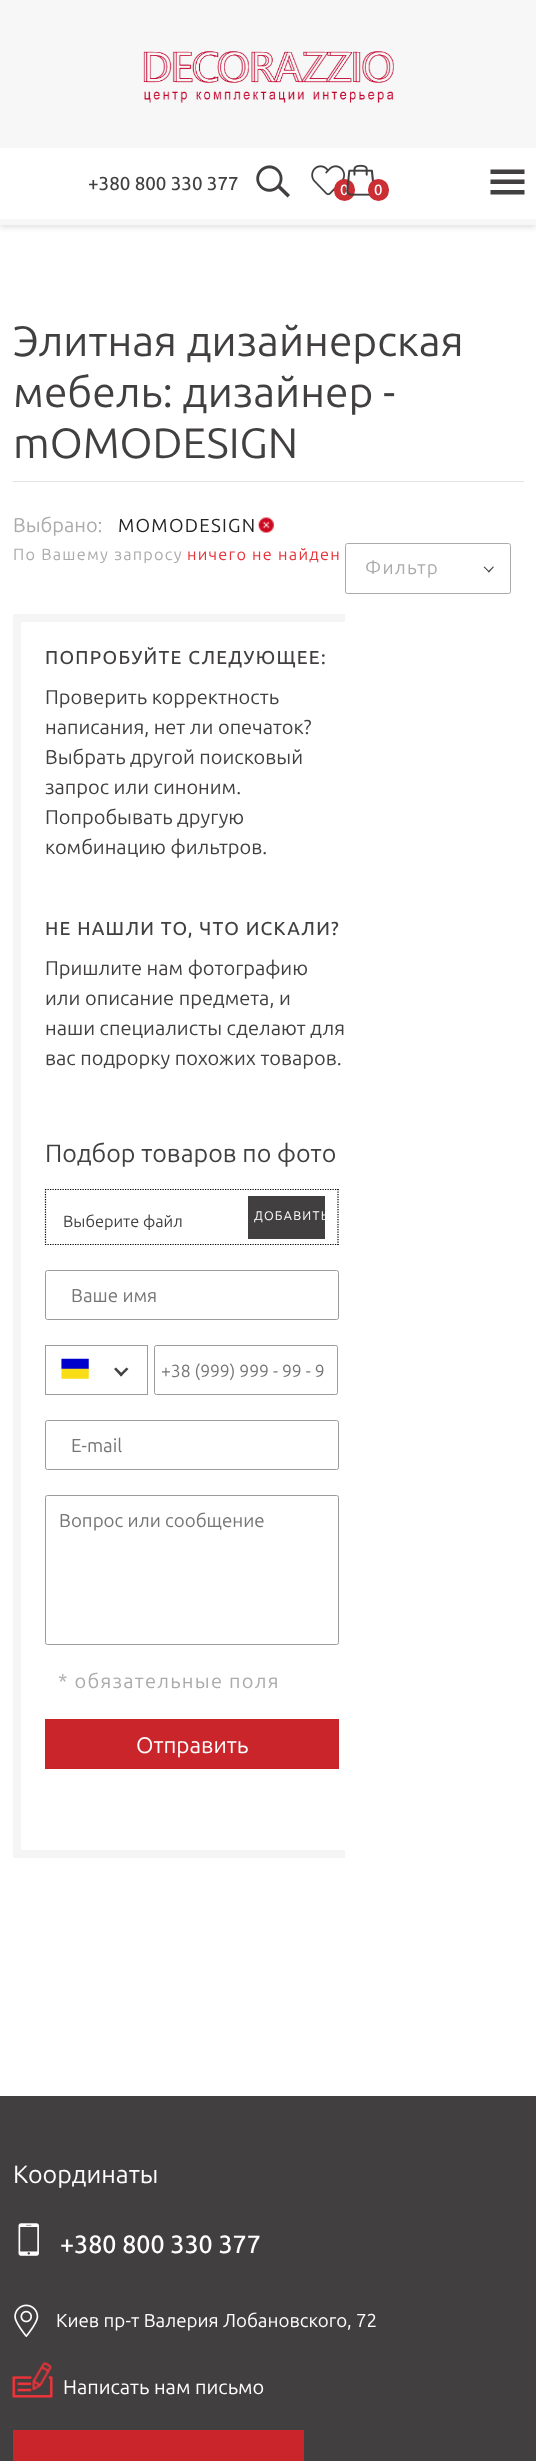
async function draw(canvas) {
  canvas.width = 536
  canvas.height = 2461
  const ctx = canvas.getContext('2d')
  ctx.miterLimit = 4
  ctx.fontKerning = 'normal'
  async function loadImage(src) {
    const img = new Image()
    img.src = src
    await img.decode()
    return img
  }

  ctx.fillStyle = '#fff'
  ctx.fillRect(0, 0, 536, 2461)
  ctx.fillStyle = '#0000001a'
  ctx.filter = 'blur(2.5px)'
  ctx.beginPath()
  ctx.rect(0, 3, 536, 225)
  ctx.fill()
  ctx.filter = 'none'
  ctx.fillStyle = '#f7f7f7'
  ctx.fillRect(0, 0, 536, 225)
  ctx.drawImage(await loadImage('image0.png'), 143, 51, 251, 52)
  ctx.fillStyle = '#fff'
  ctx.fillRect(0, 148, 536, 71)
  ctx.font = '500 18.75px Ubuntu'
  ctx.fillStyle = '#413f3f'
  ctx.fillText('+380 800 330 377', 88, 190)
  ctx.drawImage(await loadImage('image1.png'), 256, 165, 34, 33)
  ctx.drawImage(await loadImage('image2.png'), 311, 165, 34, 31)
  ctx.fillStyle = '#cb2e33'
  ctx.beginPath()
  ctx.roundRect(334, 179, 21, 22, 10.5)
  ctx.fill()
  ctx.font = '500 15px Ubuntu'
  ctx.fillStyle = '#fff'
  ctx.fillText('0', 340, 195)
  ctx.drawImage(await loadImage('image3.png'), 346, 164, 28, 32)
  ctx.fillStyle = '#cb2e33'
  ctx.beginPath()
  ctx.roundRect(368, 179, 21, 22, 10.5)
  ctx.fill()
  ctx.fillStyle = '#fff'
  ctx.fillText('0', 374, 195)
  ctx.fillStyle = '#413f3f'
  ctx.beginPath()
  ctx.moveTo(490.5, 169.5)
  ctx.lineTo(490.5, 174)
  ctx.lineTo(524.5, 174)
  ctx.lineTo(524.5, 169.5)
  ctx.closePath()
  ctx.moveTo(490.5, 184)
  ctx.lineTo(524.5, 184)
  ctx.lineTo(524.5, 179.5)
  ctx.lineTo(490.5, 179.5)
  ctx.closePath()
  ctx.moveTo(490.5, 194.5)
  ctx.lineTo(524.5, 194.5)
  ctx.lineTo(524.5, 190)
  ctx.lineTo(490.5, 190)
  ctx.closePath()
  ctx.fill()
  ctx.fillStyle = '#e3e2df'
  ctx.fillRect(13, 481, 511, 1)
  ctx.font = '42.5px Ubuntu'
  ctx.fillStyle = '#413f3f'
  ctx.fillText('Элитная дизайнерская', 13, 356)
  ctx.fillText('мебель: дизайнер -', 13, 407)
  ctx.fillText('mOMODESIGN', 13, 458)
  ctx.font = '20px Ubuntu'
  ctx.fillStyle = '#acabab'
  ctx.fillText('Выбрано:', 13, 532)
  ctx.letterSpacing = '1.25px'
  ctx.font = '18.75px Ubuntu'
  ctx.fillStyle = '#222'
  ctx.fillText('MOMODESIGN', 118, 532)
  ctx.drawImage(await loadImage('image4.png'), 258, 517, 16, 16)
  ctx.font = '16.25px Ubuntu'
  ctx.fillStyle = '#acabab'
  ctx.fillText('По Вашему запросу', 13, 560)
  ctx.fillStyle = '#e6343a'
  ctx.fillText('ничего не найден', 187, 560)
  ctx.save()
  ctx.beginPath()
  ctx.rect(13, 543, 332, 1315)
  ctx.clip()
  ctx.strokeStyle = '#f5f5f5'
  ctx.lineWidth = 8
  ctx.strokeRect(17, 618, 357, 1236)
  ctx.restore()
  ctx.font = '500 18.75px Ubuntu'
  ctx.fillStyle = '#413f3f'
  ctx.fillText('ПОПРОБУЙТЕ СЛЕДУЮЩЕЕ:', 45, 664)
  ctx.letterSpacing = '0px'
  ctx.font = '20px Ubuntu'
  ctx.fillText('Проверить корректность', 45, 704)
  ctx.fillText('написания, нет ли опечаток?', 45, 734)
  ctx.fillText('Выбрать другой поисковый', 45, 764)
  ctx.fillText('запрос или синоним.', 45, 794)
  ctx.fillText('Попробывать другую', 45, 824)
  ctx.fillText('комбинацию фильтров.', 45, 854)
  ctx.letterSpacing = '1.25px'
  ctx.font = '500 18.75px Ubuntu'
  ctx.fillText('НЕ НАШЛИ ТО, ЧТО ИСКАЛИ?', 45, 935)
  ctx.letterSpacing = '0px'
  ctx.font = '20px Ubuntu'
  ctx.fillText('Пришлите нам фотографию', 45, 975)
  ctx.fillText('или описание предмета, и', 45, 1005)
  ctx.fillText('наши специалисты сделают для', 45, 1035)
  ctx.fillText('вас подрорку похожих товаров.', 45, 1065)
  ctx.font = '25px Ubuntu'
  ctx.fillText('Подбор товаров по фото', 45, 1162)
  ctx.beginPath()
  ctx.moveTo(45, 1189.5)
  ctx.lineTo(339, 1189.5)
  ctx.strokeStyle = '#000'
  ctx.lineWidth = 1.2
  ctx.setLineDash([1.25, 1.25])
  ctx.stroke()
  ctx.beginPath()
  ctx.moveTo(338, 1189)
  ctx.lineTo(338, 1245)
  ctx.stroke()
  ctx.beginPath()
  ctx.moveTo(45, 1244.5)
  ctx.lineTo(339, 1244.5)
  ctx.stroke()
  ctx.beginPath()
  ctx.moveTo(45.5, 1189)
  ctx.lineTo(45.5, 1245)
  ctx.stroke()
  ctx.font = '16.25px Ubuntu'
  ctx.fillText('Выберите файл', 63, 1227)
  ctx.fillRect(248, 1196, 77, 43)
  ctx.save()
  ctx.beginPath()
  ctx.rect(248, 1196, 77, 43)
  ctx.clip()
  ctx.letterSpacing = '1.25px'
  ctx.font = '12.5px Ubuntu'
  ctx.fillStyle = '#fff'
  ctx.fillText('ДОБАВИТЬ', 254, 1220)
  ctx.restore()
  ctx.beginPath()
  ctx.roundRect(45.5, 1270.5, 293, 49, 2)
  ctx.strokeStyle = '#9c9b9b'
  ctx.lineWidth = 1
  ctx.setLineDash([])
  ctx.stroke()
  ctx.font = '18.75px Ubuntu'
  ctx.fillStyle = '#757575'
  ctx.fillText('Ваше имя', 71, 1302)
  ctx.strokeRect(45.5, 1345.5, 102, 49)
  ctx.drawImage(await loadImage('image5.png'), 61, 1358, 28, 21)
  ctx.fillStyle = '#454444'
  ctx.beginPath()
  ctx.moveTo(119.5, 1374.5)
  ctx.lineTo(126.5, 1367.5)
  ctx.lineTo(128.5, 1369)
  ctx.lineTo(121, 1376.5)
  ctx.closePath()
  ctx.fill()
  ctx.beginPath()
  ctx.moveTo(114, 1369)
  ctx.lineTo(116, 1367.5)
  ctx.lineTo(123, 1374.5)
  ctx.lineTo(121, 1376.5)
  ctx.closePath()
  ctx.fill()
  ctx.beginPath()
  ctx.roundRect(154.5, 1345.5, 183, 49, 2)
  ctx.stroke()
  ctx.font = '17.5px Ubuntu'
  ctx.fillStyle = '#757575'
  ctx.fillText('+38 (999) 999 - 99 - 9', 161, 1377)
  ctx.beginPath()
  ctx.roundRect(45.5, 1420.5, 293, 49, 2)
  ctx.stroke()
  ctx.font = '18.75px Ubuntu'
  ctx.fillText('E-mail', 71, 1452)
  ctx.beginPath()
  ctx.roundRect(45.5, 1495.5, 293, 149, 2)
  ctx.stroke()
  ctx.fillText('Вопрос или сообщение', 59, 1527)
  ctx.letterSpacing = '1.25px'
  ctx.font = '20px Ubuntu'
  ctx.fillStyle = '#acabab'
  ctx.fillText('* обязательные поля', 58, 1688)
  ctx.fillStyle = '#c9252b'
  ctx.fillRect(45, 1719, 294, 50)
  ctx.letterSpacing = '0px'
  ctx.font = '22.5px Ubuntu'
  ctx.fillStyle = '#fff'
  ctx.fillText('Отправить', 136, 1753)
  ctx.beginPath()
  ctx.roundRect(345.5, 543.5, 165, 50, 2)
  ctx.strokeStyle = '#acabab'
  ctx.stroke()
  ctx.letterSpacing = '1.25px'
  ctx.font = '18.75px Ubuntu'
  ctx.fillStyle = '#acabab'
  ctx.fillText('Фильтр', 365, 574)
  ctx.fillStyle = '#454444'
  ctx.beginPath()
  ctx.moveTo(488, 571.5)
  ctx.lineTo(493, 566.5)
  ctx.lineTo(494, 567)
  ctx.lineTo(489, 572.5)
  ctx.closePath()
  ctx.fill()
  ctx.beginPath()
  ctx.moveTo(483.5, 567)
  ctx.lineTo(484.5, 566.5)
  ctx.lineTo(489.5, 571.5)
  ctx.lineTo(489, 572.5)
  ctx.closePath()
  ctx.fill()
  ctx.fillStyle = '#413f3f'
  ctx.fillRect(0, 2096, 536, 365)
  ctx.letterSpacing = '0px'
  ctx.font = '25px Ubuntu'
  ctx.fillStyle = '#fff'
  ctx.fillText('Координаты', 13, 2183)
  ctx.drawImage(await loadImage('image6.png'), 18, 2223, 21, 33)
  ctx.font = '500 25px Ubuntu'
  ctx.fillText('+380 800 330 377', 60, 2253)
  ctx.drawImage(await loadImage('image7.png'), 14, 2304, 25, 33)
  ctx.font = '18.75px Ubuntu'
  ctx.fillText('Киев пр-т Валерия Лобановского, 72', 56, 2327)
  ctx.drawImage(await loadImage('image8.png'), 12, 2362, 41, 36)
  ctx.font = '20px Ubuntu'
  ctx.fillText('Написать нам письмо', 63, 2394)
  ctx.fillStyle = '#c9252b'
  ctx.fillRect(13, 2430, 291, 31)
}

draw(document.querySelector('canvas'))
